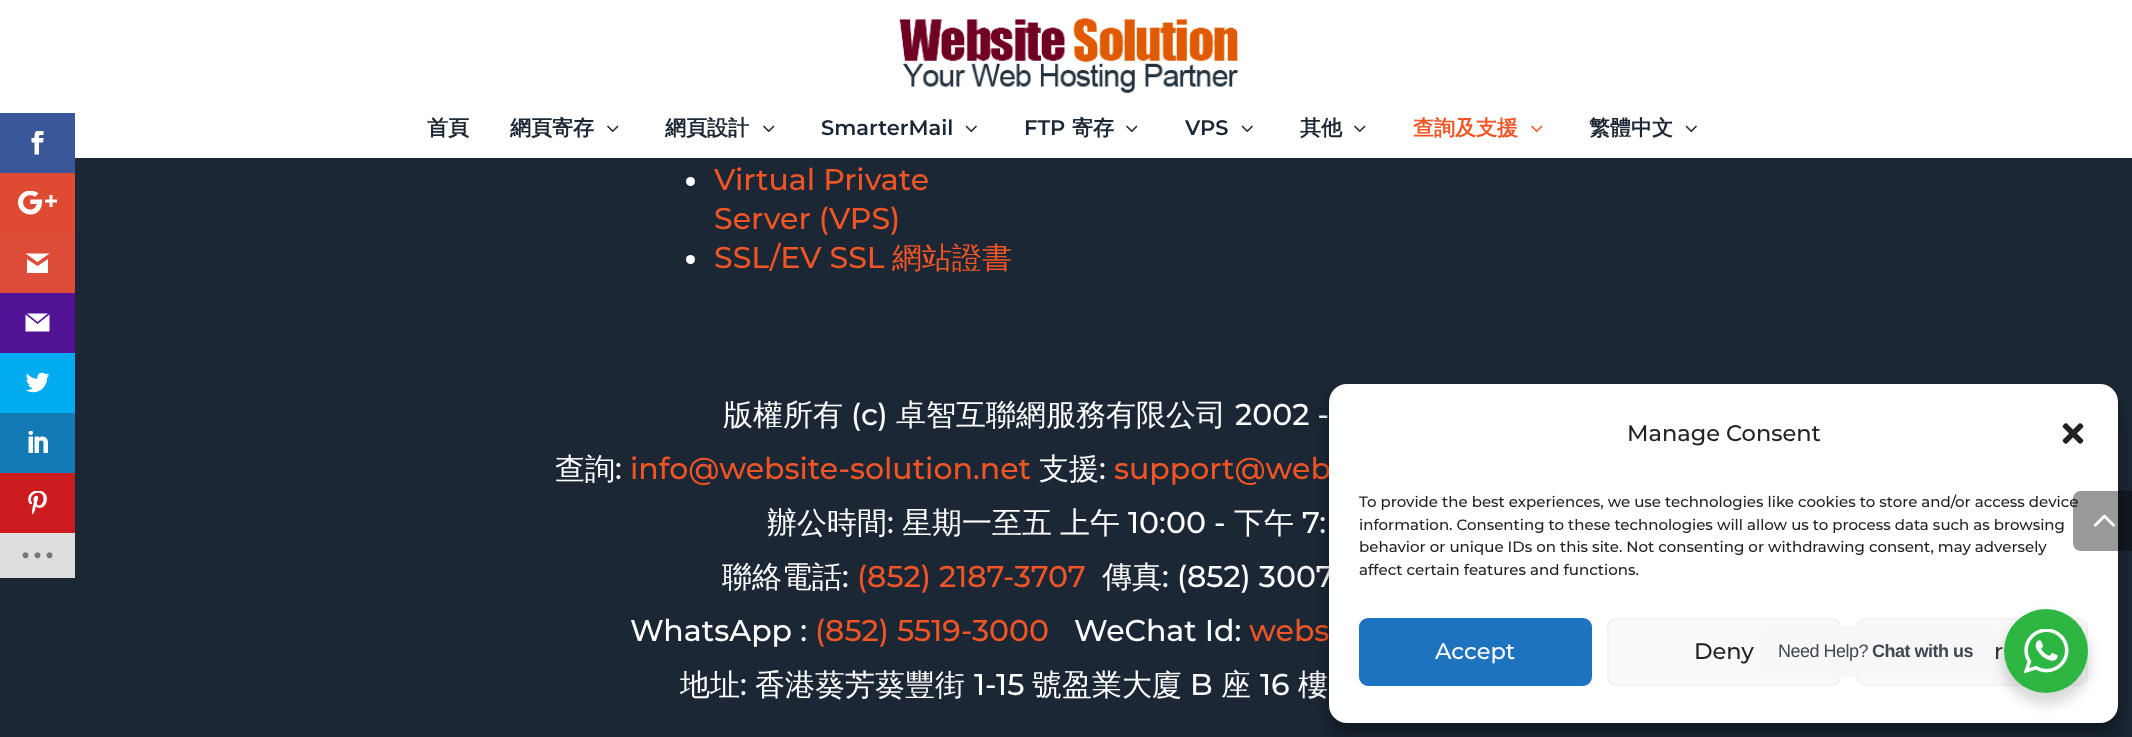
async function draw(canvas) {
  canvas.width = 2132
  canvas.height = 737
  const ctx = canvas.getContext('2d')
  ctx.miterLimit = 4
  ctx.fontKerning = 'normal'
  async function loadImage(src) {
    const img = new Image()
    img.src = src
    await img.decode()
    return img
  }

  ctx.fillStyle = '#1c2735'
  ctx.fillRect(0, 0, 2132, 737)
  ctx.fillStyle = '#fff'
  ctx.fillRect(0, 0, 2132, 158)
  ctx.fillStyle = '#3a579a'
  ctx.fillRect(0, 113, 75, 60)
  ctx.drawImage(await loadImage('image0.png'), 31, 131, 13, 24)
  ctx.fillStyle = '#df4a32'
  ctx.fillRect(0, 173, 75, 60)
  ctx.drawImage(await loadImage('image1.png'), 18, 191, 39, 24)
  ctx.fillStyle = '#dd4b39'
  ctx.fillRect(0, 233, 75, 60)
  ctx.fillStyle = '#fff'
  ctx.beginPath()
  ctx.moveTo(49.5, 253.5)
  ctx.lineTo(25.5, 253.5)
  ctx.lineTo(37.5, 262)
  ctx.closePath()
  ctx.moveTo(37.5, 266)
  ctx.lineTo(27, 259)
  ctx.lineTo(27, 273)
  ctx.lineTo(48, 273)
  ctx.lineTo(48, 259)
  ctx.closePath()
  ctx.fill()
  ctx.fillStyle = '#511295'
  ctx.fillRect(0, 293, 75, 60)
  ctx.fillStyle = '#fff'
  ctx.beginPath()
  ctx.moveTo(37.5, 324)
  ctx.lineTo(25.5, 314.5)
  ctx.lineTo(25.5, 331.5)
  ctx.lineTo(49.5, 331.5)
  ctx.lineTo(49.5, 314.5)
  ctx.closePath()
  ctx.moveTo(48, 313.5)
  ctx.lineTo(27, 313.5)
  ctx.lineTo(37.5, 322)
  ctx.closePath()
  ctx.fill()
  ctx.fillStyle = '#00abf0'
  ctx.fillRect(0, 353, 75, 60)
  ctx.drawImage(await loadImage('image2.png'), 25, 372, 25, 21)
  ctx.fillStyle = '#127bb6'
  ctx.fillRect(0, 413, 75, 60)
  ctx.drawImage(await loadImage('image3.png'), 28, 431, 20, 22)
  ctx.fillStyle = '#cd1c1f'
  ctx.fillRect(0, 473, 75, 60)
  ctx.drawImage(await loadImage('image4.png'), 28, 491, 19, 24)
  ctx.fillStyle = '#dedede'
  ctx.fillRect(0, 533, 75, 45)
  ctx.drawImage(await loadImage('image5.png'), 22, 552, 31, 7)
  ctx.drawImage(await loadImage('image6.png'), 899, 18, 340, 75)
  ctx.font = 'bold 21px WenQuanYi Zen Hei'
  ctx.fillStyle = '#1c2735'
  ctx.fillText('首頁', 427, 135)
  ctx.fillText('網頁寄存', 510, 135)
  ctx.drawImage(await loadImage('image7.png'), 607, 125, 12, 7)
  ctx.fillText('網頁設計', 665, 135)
  ctx.drawImage(await loadImage('image7.png'), 763, 125, 12, 7)
  ctx.font = '600 21px Montserrat'
  ctx.fillText('SmarterMail', 821, 135)
  ctx.drawImage(await loadImage('image8.png'), 965, 125, 12, 7)
  ctx.fillText('FTP', 1024, 135)
  ctx.font = 'bold 21px WenQuanYi Zen Hei'
  ctx.fillText('寄存', 1072, 135)
  ctx.drawImage(await loadImage('image7.png'), 1126, 125, 12, 7)
  ctx.font = '600 21px Montserrat'
  ctx.fillText('VPS', 1185, 135)
  ctx.drawImage(await loadImage('image8.png'), 1241, 125, 12, 7)
  ctx.font = 'bold 21px WenQuanYi Zen Hei'
  ctx.fillText('其他', 1300, 135)
  ctx.drawImage(await loadImage('image7.png'), 1354, 125, 12, 7)
  ctx.fillStyle = '#f15525'
  ctx.fillText('查詢及支援', 1413, 135)
  ctx.drawImage(await loadImage('image9.png'), 1531, 125, 12, 7)
  ctx.fillStyle = '#1c2735'
  ctx.fillText('繁體中文', 1589, 135)
  ctx.drawImage(await loadImage('image8.png'), 1685, 125, 12, 7)
  ctx.fillStyle = '#fff'
  ctx.beginPath()
  ctx.arc(690.5, 181.5, 4.5, 0, 2 * Math.PI)
  ctx.fill()
  ctx.font = '500 30px Montserrat'
  ctx.fillStyle = '#f15525'
  ctx.fillText('Virtual Private', 714, 190)
  ctx.fillText('Server (VPS)', 714, 229)
  ctx.fillStyle = '#fff'
  ctx.beginPath()
  ctx.arc(690.5, 259.5, 4.5, 0, 2 * Math.PI)
  ctx.fill()
  ctx.fillStyle = '#f15525'
  ctx.fillText('SSL/EV SSL', 714, 268)
  ctx.font = '500 30px WenQuanYi Zen Hei'
  ctx.fillText('網站證書', 892, 268)
  ctx.fillStyle = '#fff'
  ctx.fillText('版權所有', 723, 425)
  ctx.font = '500 30px Montserrat'
  ctx.fillText('(c)', 851, 425)
  ctx.font = '500 30px WenQuanYi Zen Hei'
  ctx.fillText('卓智互聯網服務有限公司', 896, 425)
  ctx.font = '500 30px Montserrat'
  ctx.fillText('2002 -', 1235, 425)
  ctx.font = '500 30px WenQuanYi Zen Hei'
  ctx.fillText('查詢', 555, 479)
  ctx.font = '500 30px Montserrat'
  ctx.fillText(':', 615, 479)
  ctx.fillStyle = '#f15525'
  ctx.fillText('info@website-solution.net', 630, 479)
  ctx.font = '500 30px WenQuanYi Zen Hei'
  ctx.fillStyle = '#fff'
  ctx.fillText('支援', 1039, 479)
  ctx.font = '500 30px Montserrat'
  ctx.fillText(':', 1099, 479)
  ctx.fillStyle = '#f15525'
  ctx.fillText('support@web', 1114, 479)
  ctx.font = '500 30px WenQuanYi Zen Hei'
  ctx.fillStyle = '#fff'
  ctx.fillText('辦公時間', 767, 533)
  ctx.font = '500 30px Montserrat'
  ctx.fillText(':', 887, 533)
  ctx.font = '500 30px WenQuanYi Zen Hei'
  ctx.fillText('星期一至五', 902, 533)
  ctx.fillText('上午', 1060, 533)
  ctx.font = '500 30px Montserrat'
  ctx.fillText('10:00 -', 1128, 533)
  ctx.font = '500 30px WenQuanYi Zen Hei'
  ctx.fillText('下午', 1234, 533)
  ctx.font = '500 30px Montserrat'
  ctx.fillText('7:', 1302, 533)
  ctx.font = '500 30px WenQuanYi Zen Hei'
  ctx.fillText('聯絡電話', 722, 587)
  ctx.font = '500 30px Montserrat'
  ctx.fillText(':', 842, 587)
  ctx.fillStyle = '#f15525'
  ctx.fillText('(852) 2187-3707', 857, 587)
  ctx.font = '500 30px WenQuanYi Zen Hei'
  ctx.fillStyle = '#fff'
  ctx.fillText('傳真', 1102, 587)
  ctx.font = '500 30px Montserrat'
  ctx.fillText(': (852) 3007', 1162, 587)
  ctx.fillText('WhatsApp :', 630, 641)
  ctx.fillStyle = '#f15525'
  ctx.fillText('(852) 5519-3000', 815, 641)
  ctx.fillStyle = '#fff'
  ctx.fillText('WeChat Id:', 1074, 641)
  ctx.fillStyle = '#f15525'
  ctx.fillText('webs', 1249, 641)
  ctx.font = '500 30px WenQuanYi Zen Hei'
  ctx.fillStyle = '#fff'
  ctx.fillText('地址', 680, 695)
  ctx.font = '500 30px Montserrat'
  ctx.fillText(':', 740, 695)
  ctx.font = '500 30px WenQuanYi Zen Hei'
  ctx.fillText('香港葵芳葵豐街', 755, 695)
  ctx.font = '500 30px Montserrat'
  ctx.fillText('1-15', 974, 695)
  ctx.font = '500 30px WenQuanYi Zen Hei'
  ctx.fillText('號盈業大廈', 1032, 695)
  ctx.font = '500 30px Montserrat'
  ctx.fillText('B', 1190, 695)
  ctx.font = '500 30px WenQuanYi Zen Hei'
  ctx.fillText('座', 1221, 695)
  ctx.font = '500 30px Montserrat'
  ctx.fillText('16', 1260, 695)
  ctx.font = '500 30px WenQuanYi Zen Hei'
  ctx.fillText('樓', 1298, 695)
  ctx.fillStyle = '#0000003b'
  ctx.filter = 'blur(4.5px)'
  ctx.beginPath()
  ctx.roundRect(1329, 393, 789, 339, 18)
  ctx.fill()
  ctx.filter = 'none'
  ctx.fillStyle = '#00000030'
  ctx.filter = 'blur(15px)'
  ctx.beginPath()
  ctx.roundRect(1329, 399, 789, 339, 18)
  ctx.fill()
  ctx.filter = 'none'
  ctx.fillStyle = '#fff'
  ctx.beginPath()
  ctx.roundRect(1329, 384, 789, 339, 18)
  ctx.fill()
  ctx.font = '500 15px Montserrat'
  ctx.fillStyle = '#222'
  ctx.fillText('To provide the best experiences, we use technologies like cookies to store and/or access device', 1359, 507)
  ctx.fillStyle = '#00000066'
  ctx.beginPath()
  ctx.moveTo(2081, 491)
  ctx.lineTo(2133, 491)
  ctx.lineTo(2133, 551)
  ctx.lineTo(2081, 551)
  ctx.bezierCurveTo(2076.5, 551, 2073, 547.5, 2073, 543)
  ctx.lineTo(2073, 499)
  ctx.bezierCurveTo(2073, 494.5, 2076.5, 491, 2081, 491)
  ctx.closePath()
  ctx.fill()
  ctx.drawImage(await loadImage('image10.png'), 2093, 514, 22, 13)
  ctx.font = '500 22.5px Montserrat'
  ctx.fillStyle = '#222'
  ctx.fillText('Manage Consent', 1627, 441)
  ctx.drawImage(await loadImage('image11.png'), 2062, 423, 22, 21)
  ctx.font = '500 15px Montserrat'
  ctx.fillText('information. Consenting to these technologies will allow us to process data such as browsing', 1359, 530)
  ctx.fillText('behavior or unique IDs on this site. Not consenting or withdrawing consent, may adversely', 1359, 552)
  ctx.fillText('affect certain features and functions.', 1359, 575)
  ctx.fillStyle = '#1e73be'
  ctx.beginPath()
  ctx.roundRect(1360, 619, 231, 66, 8)
  ctx.fill()
  ctx.strokeStyle = '#1e73be'
  ctx.lineWidth = 2
  ctx.stroke()
  ctx.font = '500 22.5px Montserrat'
  ctx.fillStyle = '#fff'
  ctx.fillText('Accept', 1435, 659)
  ctx.fillStyle = '#f9f9f9'
  ctx.beginPath()
  ctx.roundRect(1608, 619, 232, 66, 8)
  ctx.fill()
  ctx.strokeStyle = '#f2f2f2'
  ctx.stroke()
  ctx.fillStyle = '#222'
  ctx.fillText('Deny', 1694, 659)
  ctx.fillStyle = '#f9f9f9'
  ctx.beginPath()
  ctx.roundRect(1857, 619, 230, 66, 8)
  ctx.fill()
  ctx.stroke()
  ctx.fillStyle = '#333'
  ctx.fillText('r', 1994, 659)
  ctx.fillStyle = '#00000024'
  ctx.filter = 'blur(6px)'
  ctx.beginPath()
  ctx.roundRect(2001, 615, 90, 90, 45)
  ctx.fill()
  ctx.filter = 'none'
  ctx.fillStyle = '#f5f7f9'
  ctx.beginPath()
  ctx.roundRect(1760, 626, 234, 51, 6)
  ctx.fill()
  ctx.letterSpacing = '-0.5px'
  ctx.font = '18px Liberation Sans'
  ctx.fillStyle = '#43474e'
  ctx.fillText('Need Help?', 1778, 657)
  ctx.font = 'bold 18px Liberation Sans'
  ctx.fillText('Chat with us', 1872, 657)
  ctx.fillStyle = '#2db742'
  ctx.beginPath()
  ctx.arc(2046, 651, 42, 0, 2 * Math.PI)
  ctx.fill()
  ctx.drawImage(await loadImage('image12.png'), 2024, 629, 45, 45)
}

draw(document.querySelector('canvas'))
